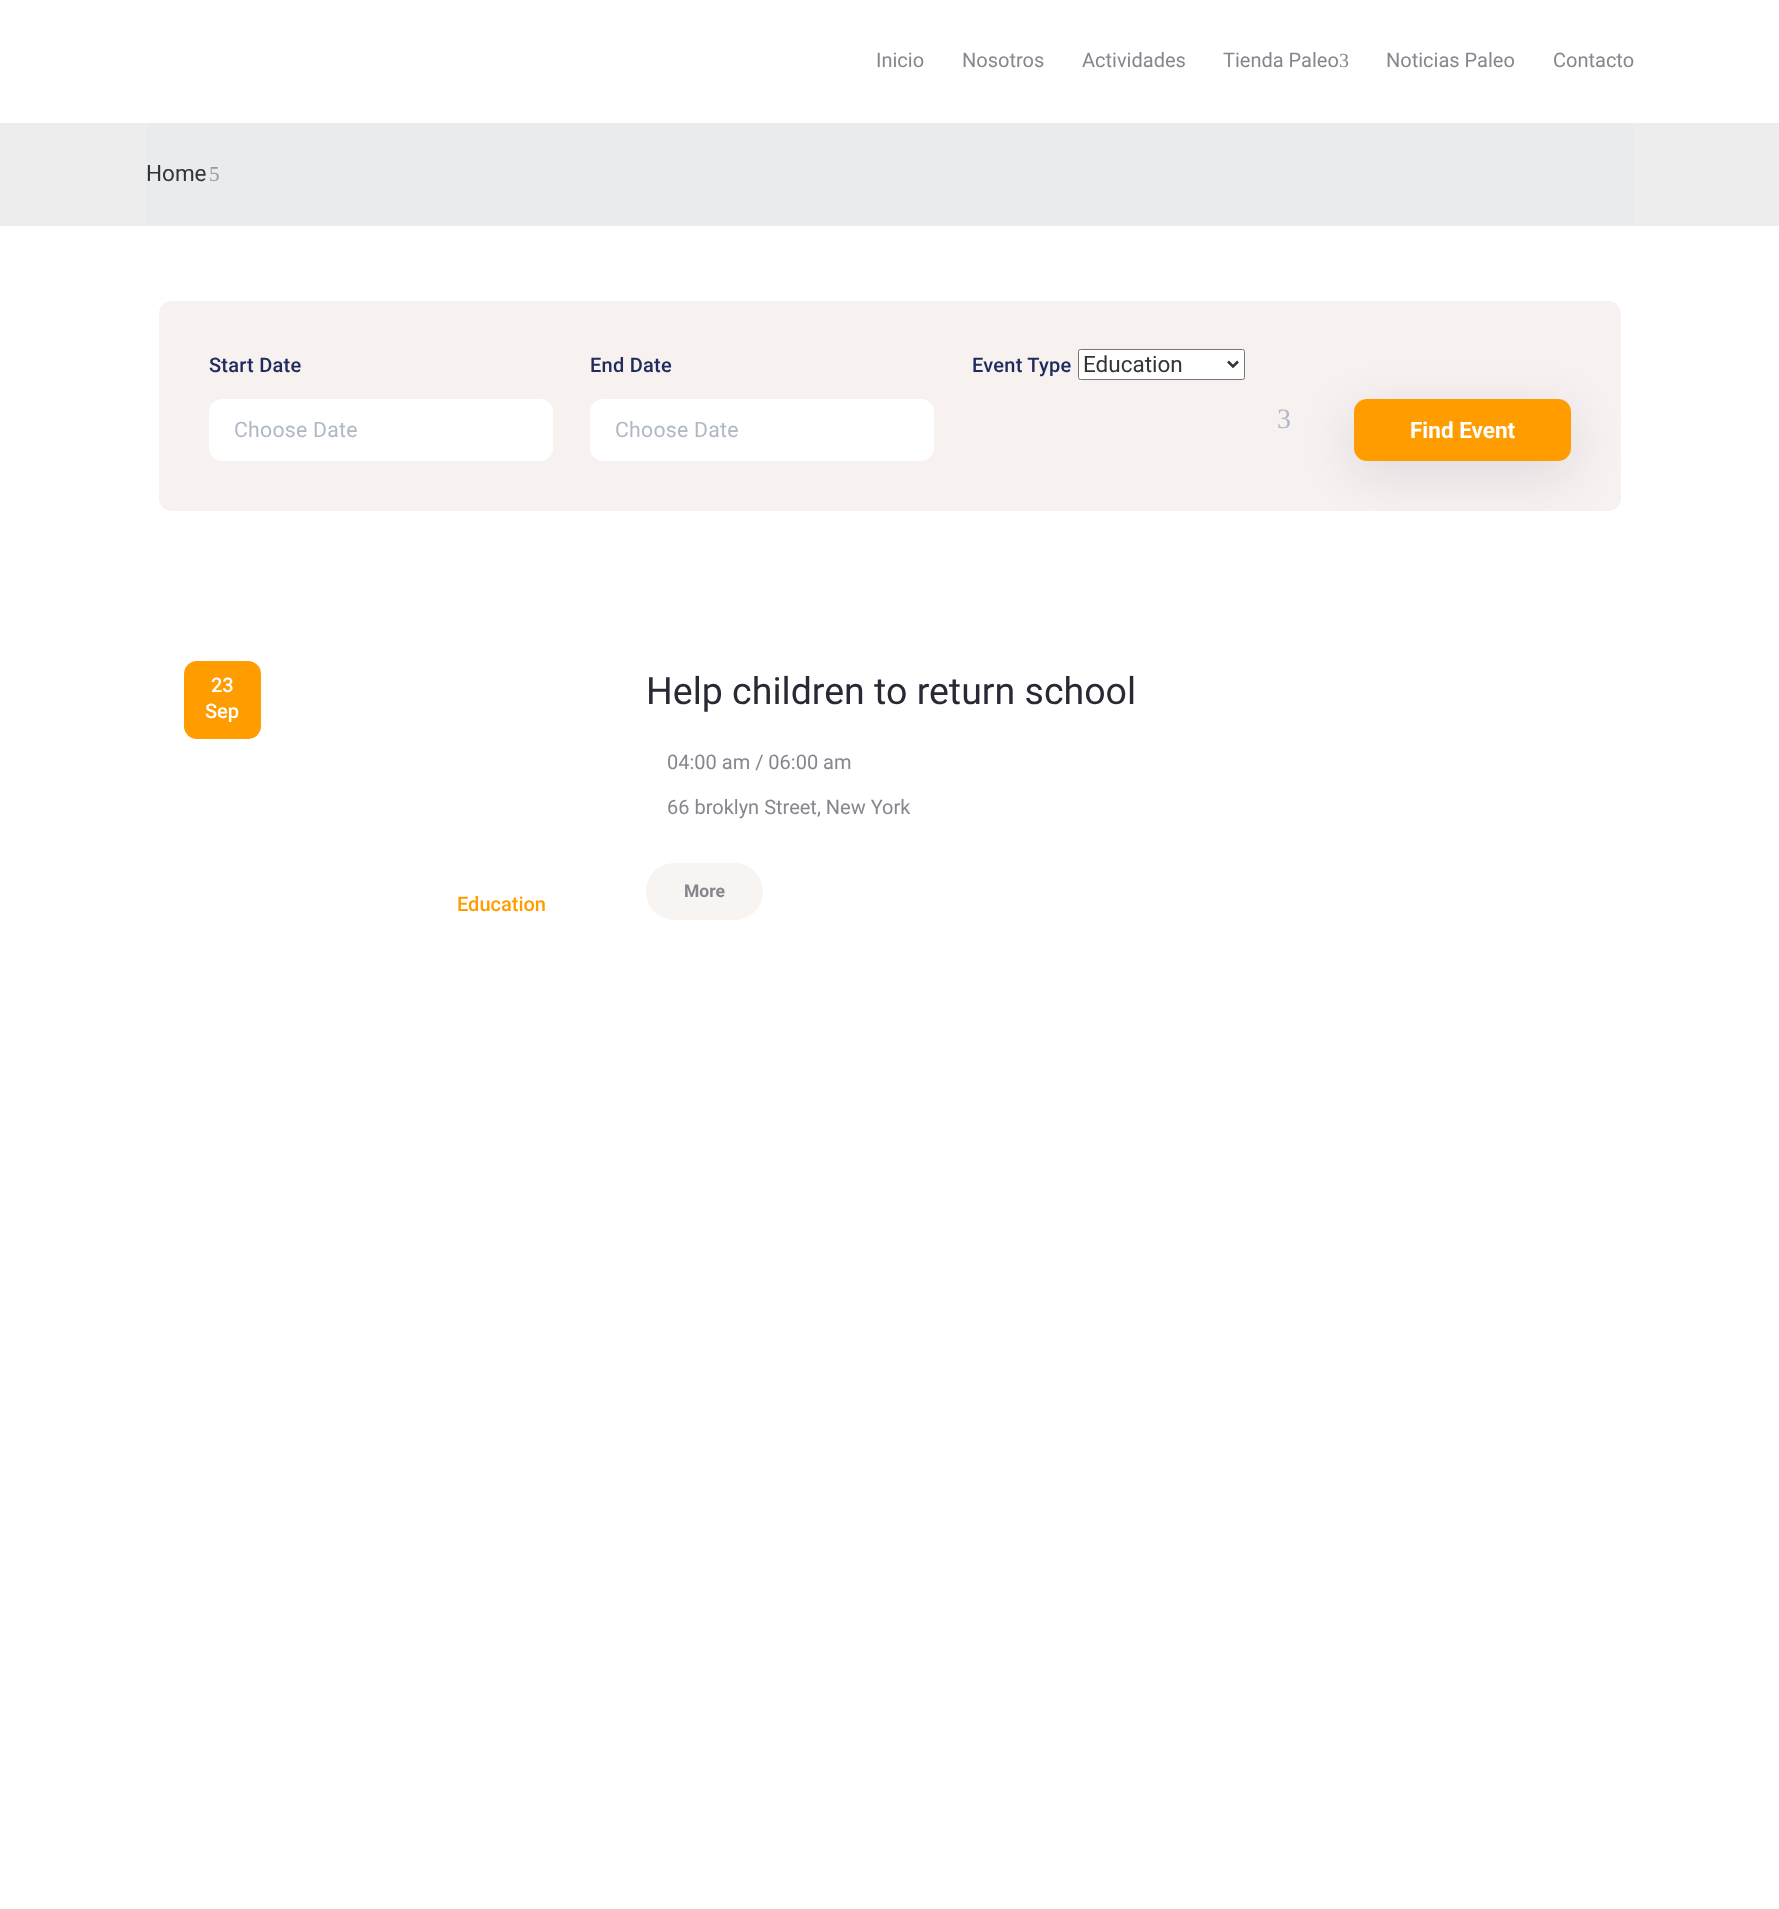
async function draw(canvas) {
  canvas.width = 1779
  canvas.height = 1909
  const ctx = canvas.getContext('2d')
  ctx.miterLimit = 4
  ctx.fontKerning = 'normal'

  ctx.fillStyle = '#fff'
  ctx.fillRect(0, 0, 1779, 1909)
  ctx.font = '20px Roboto'
  ctx.fillStyle = '#88858e'
  ctx.fillText('Inicio', 876, 67)
  ctx.fillText('Nosotros', 962, 67)
  ctx.fillText('Actividades', 1082, 67)
  ctx.fillText('Tienda Paleo', 1223, 67)
  ctx.font = '20px Liberation Serif'
  ctx.fillText('3', 1339, 67)
  ctx.font = '20px Roboto'
  ctx.fillText('Noticias Paleo', 1386, 67)
  ctx.fillText('Contacto', 1553, 67)
  ctx.fillStyle = '#ededed'
  ctx.fillRect(0, 123, 1779, 103)
  ctx.fillStyle = '#e9ecef'
  ctx.beginPath()
  ctx.roundRect(146, 123, 1488, 103, 5)
  ctx.fill()
  ctx.font = '22.5px Roboto'
  ctx.fillStyle = '#343434'
  ctx.fillText('Home', 146, 181)
  ctx.font = '21.25px Liberation Serif'
  ctx.fillStyle = '#999'
  ctx.fillText('5', 209, 181)
  ctx.fillStyle = '#f7f1f0'
  ctx.beginPath()
  ctx.roundRect(159, 301, 1462, 210, 13)
  ctx.fill()
  ctx.letterSpacing = '0.25px'
  ctx.font = '500 20px Roboto'
  ctx.fillStyle = '#202b5d'
  ctx.fillText('Start Date', 209, 372)
  ctx.fillStyle = '#fff'
  ctx.beginPath()
  ctx.roundRect(209, 399, 344, 62, 13)
  ctx.fill()
  ctx.font = '21.25px Roboto'
  ctx.fillStyle = '#b0b8c6'
  ctx.fillText('Choose Date', 234, 437)
  ctx.font = '500 20px Roboto'
  ctx.fillStyle = '#202b5d'
  ctx.fillText('End Date', 590, 372)
  ctx.fillStyle = '#fff'
  ctx.beginPath()
  ctx.roundRect(590, 399, 344, 62, 13)
  ctx.fill()
  ctx.font = '21.25px Roboto'
  ctx.fillStyle = '#b0b8c6'
  ctx.fillText('Choose Date', 615, 437)
  ctx.font = '500 20px Roboto'
  ctx.fillStyle = '#202b5d'
  ctx.fillText('Event Type', 972, 372)
  ctx.fillStyle = '#fff'
  ctx.beginPath()
  ctx.roundRect(1078.5, 349.5, 166, 30, 2)
  ctx.fill()
  ctx.strokeStyle = '#767676'
  ctx.stroke()
  ctx.beginPath()
  ctx.moveTo(1228, 361.5)
  ctx.lineTo(1233, 366.5)
  ctx.lineTo(1238, 361.5)
  ctx.strokeStyle = '#343434'
  ctx.lineWidth = 2.5
  ctx.stroke()
  ctx.letterSpacing = '0px'
  ctx.font = '22.5px Roboto'
  ctx.fillStyle = '#343434'
  ctx.fillText('Education', 1083, 372)
  ctx.fillStyle = '#06163a1a'
  ctx.filter = 'blur(25px)'
  ctx.beginPath()
  ctx.roundRect(1354, 411, 217, 63, 13)
  ctx.fill()
  ctx.filter = 'none'
  ctx.font = '28px Liberation Serif'
  ctx.fillStyle = '#b0b8c6'
  ctx.fillText('3', 1277, 428)
  ctx.fillStyle = '#ff9d00'
  ctx.beginPath()
  ctx.roundRect(1354, 399, 217, 62, 13)
  ctx.fill()
  ctx.font = 'bold 22.5px Roboto'
  ctx.fillStyle = '#fff'
  ctx.fillText('Find Event', 1410, 438)
  ctx.fillStyle = '#ff9d00'
  ctx.beginPath()
  ctx.roundRect(184, 661, 77, 78, 13)
  ctx.fill()
  ctx.font = '500 20px Roboto'
  ctx.fillStyle = '#fff'
  ctx.fillText('23', 211, 692)
  ctx.fillText('Sep', 205, 718)
  ctx.font = '37.5px Roboto'
  ctx.fillStyle = '#2c2734'
  ctx.fillText('Help children to return school', 646, 704)
  ctx.font = '20px Roboto'
  ctx.fillStyle = '#88858e'
  ctx.fillText('04:00 am / 06:00 am', 667, 769)
  ctx.fillText('66 broklyn Street, New York', 667, 814)
  ctx.fillStyle = '#f7f4f2'
  ctx.beginPath()
  ctx.roundRect(646, 863, 117, 57, 28.5)
  ctx.fill()
  ctx.font = 'bold 17.5px Roboto'
  ctx.fillStyle = '#88858e'
  ctx.fillText('More', 684, 897)
  ctx.font = '500 20px Roboto'
  ctx.fillStyle = '#ff9d00'
  ctx.fillText('Education', 457, 911)
}

draw(document.querySelector('canvas'))
